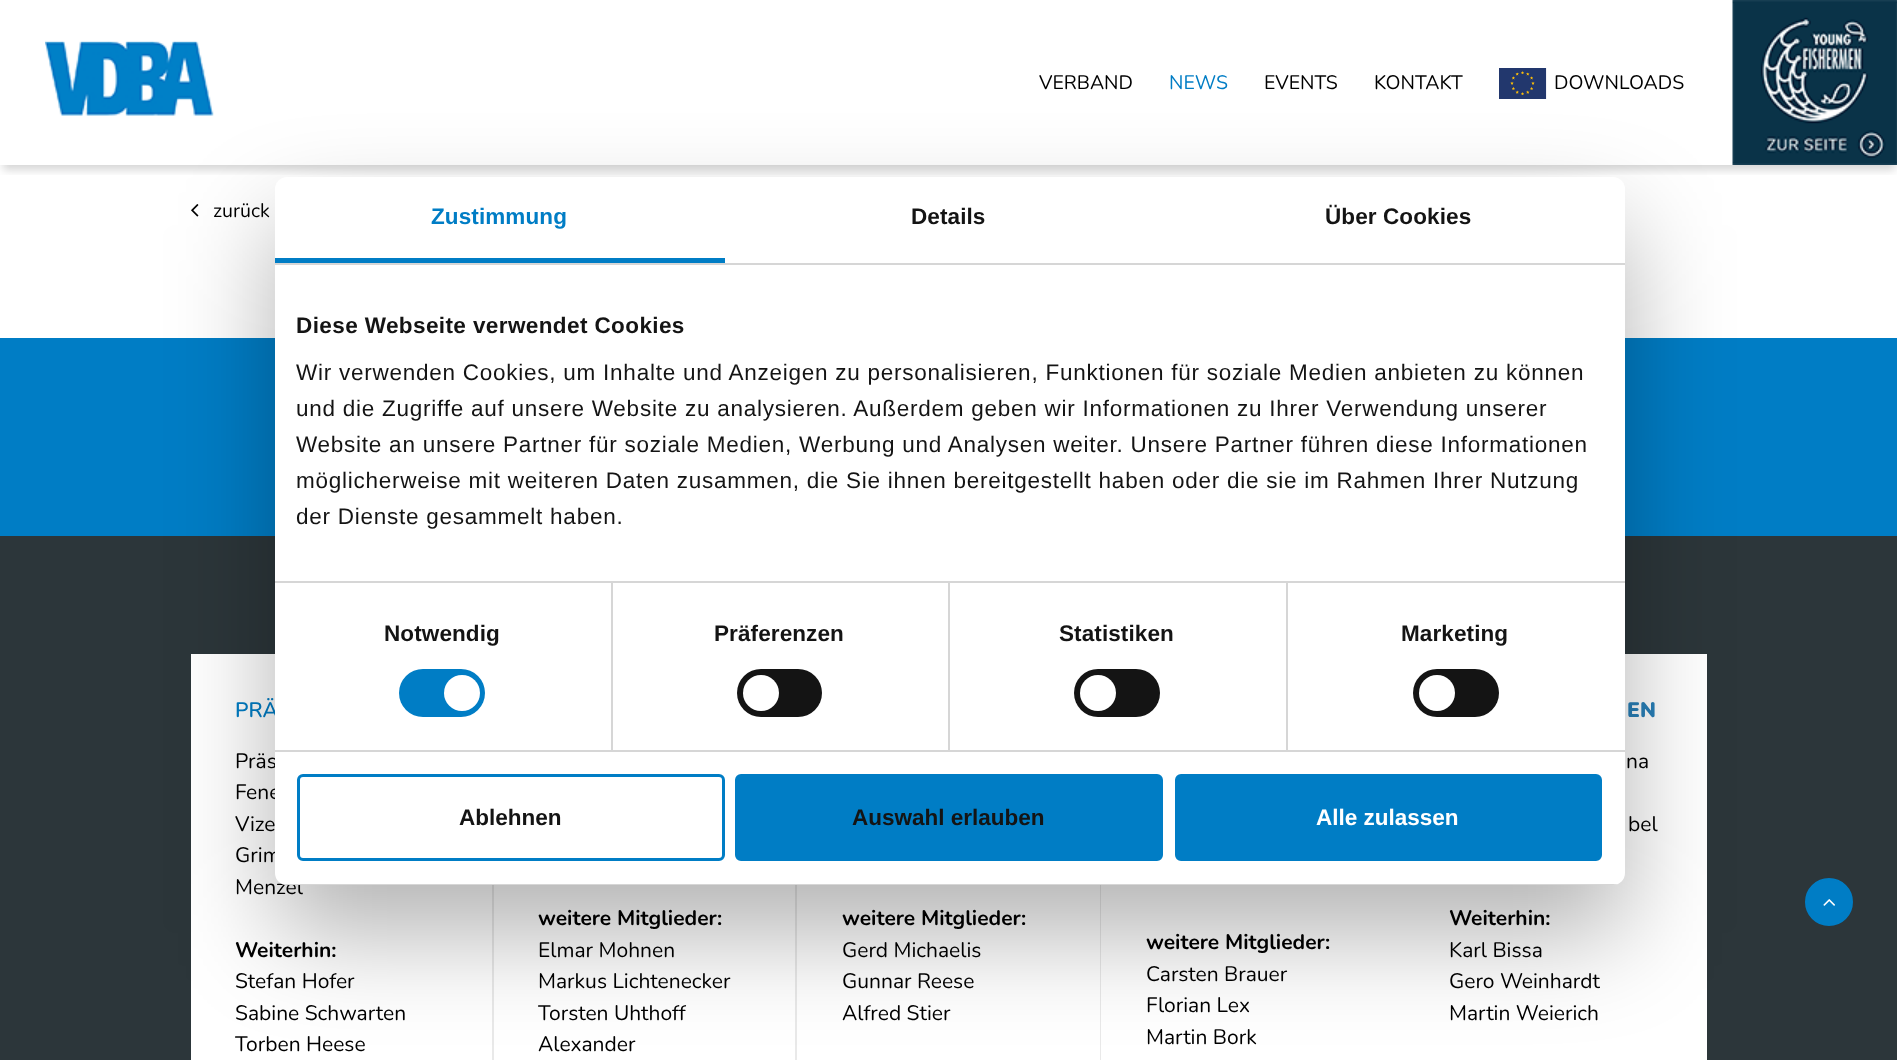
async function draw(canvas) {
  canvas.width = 1897
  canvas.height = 1060
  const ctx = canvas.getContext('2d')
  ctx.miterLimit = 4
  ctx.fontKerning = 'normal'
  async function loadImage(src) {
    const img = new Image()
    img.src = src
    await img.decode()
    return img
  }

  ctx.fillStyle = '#fff'
  ctx.fillRect(0, 0, 1897, 1060)
  ctx.save()
  ctx.beginPath()
  ctx.rect(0, 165, 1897, 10)
  ctx.clip()
  ctx.fillStyle = '#00000029'
  ctx.filter = 'blur(4px)'
  ctx.beginPath()
  ctx.rect(3, 11, 1892, 159)
  ctx.fill()
  ctx.filter = 'none'
  ctx.restore()
  ctx.drawImage(await loadImage('image0.png'), 45, 40, 169, 76)
  ctx.font = '19.5px Nunito'
  ctx.fillStyle = '#000'
  ctx.fillText('VERBAND', 1039, 89)
  ctx.fillStyle = '#007dc5'
  ctx.fillText('NEWS', 1169, 89)
  ctx.fillStyle = '#000'
  ctx.fillText('EVENTS', 1264, 89)
  ctx.fillText('KONTAKT', 1374, 89)
  ctx.drawImage(await loadImage('image1.png'), 1499, 68, 48, 31)
  ctx.fillText('DOWNLOADS', 1554, 89)
  ctx.drawImage(await loadImage('image2.png'), 1732, 0, 165, 165)
  ctx.drawImage(await loadImage('image3.png'), 191, 204, 8, 13)
  ctx.fillText('zurück', 213, 217)
  ctx.fillStyle = '#007dc5'
  ctx.fillRect(0, 338, 1897, 198)
  ctx.fillStyle = '#2c363a'
  ctx.fillRect(0, 536, 1897, 524)
  ctx.fillStyle = '#fff'
  ctx.fillRect(191, 654, 301, 406)
  ctx.fillStyle = '#e9e9e9'
  ctx.fillRect(492, 885, 2, 175)
  ctx.font = '600 21px Nunito'
  ctx.fillStyle = '#007dc5'
  ctx.fillText('PRÄ', 235, 717)
  ctx.font = '21px Nunito'
  ctx.fillStyle = '#000'
  ctx.fillText('Präs', 235, 768)
  ctx.fillText('Fene', 235, 799)
  ctx.fillText('Vize', 235, 831)
  ctx.fillText('Grim', 235, 862)
  ctx.fillText('Menzel', 235, 894)
  ctx.font = 'bold 21px Nunito'
  ctx.fillText('Weiterhin:', 235, 957)
  ctx.font = '21px Nunito'
  ctx.fillText('Stefan Hofer', 235, 988)
  ctx.fillText('Sabine Schwarten', 235, 1020)
  ctx.fillText('Torben Heese', 235, 1051)
  ctx.fillStyle = '#fff'
  ctx.fillRect(494, 885, 301, 175)
  ctx.fillStyle = '#e9e9e9'
  ctx.fillRect(795, 885, 2, 175)
  ctx.font = 'bold 21px Nunito'
  ctx.fillStyle = '#000'
  ctx.fillText('weitere Mitglieder:', 538, 925)
  ctx.font = '21px Nunito'
  ctx.fillText('Elmar Mohnen', 538, 957)
  ctx.fillText('Markus Lichtenecker', 538, 988)
  ctx.fillText('Torsten Uhthoff', 538, 1020)
  ctx.fillText('Alexander', 538, 1051)
  ctx.fillStyle = '#fff'
  ctx.fillRect(797, 885, 303, 175)
  ctx.fillStyle = '#e9e9e9'
  ctx.fillRect(1100, 885, 1, 175)
  ctx.font = 'bold 21px Nunito'
  ctx.fillStyle = '#000'
  ctx.fillText('weitere Mitglieder:', 842, 925)
  ctx.font = '21px Nunito'
  ctx.fillText('Gerd Michaelis', 842, 957)
  ctx.fillText('Gunnar Reese', 842, 988)
  ctx.fillText('Alfred Stier', 842, 1020)
  ctx.fillStyle = '#fff'
  ctx.fillRect(1101, 885, 303, 175)
  ctx.font = 'bold 21px Nunito'
  ctx.fillStyle = '#000'
  ctx.fillText('weitere Mitglieder:', 1146, 949)
  ctx.font = '21px Nunito'
  ctx.fillText('Carsten Brauer', 1146, 981)
  ctx.fillText('Florian Lex', 1146, 1012)
  ctx.fillText('Martin Bork', 1146, 1044)
  ctx.fillStyle = '#fff'
  ctx.fillRect(1404, 654, 303, 406)
  ctx.font = '900 21px Nunito'
  ctx.fillStyle = '#2980b9'
  ctx.fillText('EN', 1627, 717)
  ctx.font = '21px Nunito'
  ctx.fillStyle = '#000'
  ctx.fillText('na', 1626, 768)
  ctx.fillText('bel', 1628, 831)
  ctx.font = 'bold 21px Nunito'
  ctx.fillText('Weiterhin:', 1449, 925)
  ctx.font = '21px Nunito'
  ctx.fillText('Karl Bissa', 1449, 957)
  ctx.fillText('Gero Weinhardt', 1449, 988)
  ctx.fillText('Martin Weierich', 1449, 1020)
  ctx.fillStyle = '#007dc5'
  ctx.beginPath()
  ctx.arc(1829, 902, 23, 0, 2 * Math.PI)
  ctx.fill()
  ctx.strokeStyle = '#007dc5'
  ctx.lineWidth = 2
  ctx.stroke()
  ctx.drawImage(await loadImage('image4.png'), 1823, 899, 12, 7)
  ctx.fillStyle = '#0000004d'
  ctx.filter = 'blur(51px)'
  ctx.beginPath()
  ctx.roundRect(275, 225, 1350, 708, 12)
  ctx.fill()
  ctx.filter = 'none'
  ctx.fillStyle = '#fff'
  ctx.beginPath()
  ctx.roundRect(275, 177, 1350, 708, 12)
  ctx.fill()
  ctx.fillStyle = '#d6d6d6'
  ctx.fillRect(275, 263, 1350, 2)
  ctx.fillStyle = '#007dc5'
  ctx.fillRect(275, 258, 450, 5)
  ctx.letterSpacing = '0.1px'
  ctx.font = 'bold 22.5px Liberation Sans'
  ctx.fillText('Zustimmung', 431, 224)
  ctx.fillStyle = '#141414'
  ctx.fillText('Details', 911, 224)
  ctx.fillText('Über Cookies', 1325, 224)
  ctx.fillStyle = '#d6d6d6'
  ctx.fillRect(611, 582, 2, 168)
  ctx.fillRect(948, 582, 2, 168)
  ctx.fillRect(1286, 582, 2, 168)
  ctx.fillRect(275, 581, 1350, 2)
  ctx.letterSpacing = '0.4px'
  ctx.fillStyle = '#141414'
  ctx.fillText('Diese Webseite verwendet Cookies', 296, 333)
  ctx.letterSpacing = '0.75px'
  ctx.font = '22.5px Liberation Sans'
  ctx.fillText('Wir verwenden Cookies, um Inhalte und Anzeigen zu personalisieren, Funktionen für soziale Medien anbieten zu können', 296, 380)
  ctx.fillText('und die Zugriffe auf unsere Website zu analysieren. Außerdem geben wir Informationen zu Ihrer Verwendung unserer', 296, 416)
  ctx.fillText('Website an unsere Partner für soziale Medien, Werbung und Analysen weiter. Unsere Partner führen diese Informationen', 296, 452)
  ctx.fillText('möglicherweise mit weiteren Daten zusammen, die Sie ihnen bereitgestellt haben oder die sie im Rahmen Ihrer Nutzung', 296, 488)
  ctx.fillText('der Dienste gesammelt haben.', 296, 524)
  ctx.fillStyle = '#d6d6d6'
  ctx.fillRect(275, 750, 1350, 2)
  ctx.letterSpacing = '0.1px'
  ctx.font = 'bold 22.5px Liberation Sans'
  ctx.fillStyle = '#141414'
  ctx.fillText('Notwendig', 384, 641)
  ctx.fillStyle = '#007dc5'
  ctx.beginPath()
  ctx.roundRect(399, 669, 86, 48, 24)
  ctx.fill()
  ctx.fillStyle = '#fff'
  ctx.beginPath()
  ctx.arc(462, 693, 18, 0, 2 * Math.PI)
  ctx.fill()
  ctx.fillStyle = '#141414'
  ctx.fillText('Präferenzen', 714, 641)
  ctx.beginPath()
  ctx.roundRect(737, 669, 85, 48, 24)
  ctx.fill()
  ctx.fillStyle = '#fff'
  ctx.beginPath()
  ctx.arc(761, 693, 18, 0, 2 * Math.PI)
  ctx.fill()
  ctx.fillStyle = '#141414'
  ctx.fillText('Statistiken', 1059, 641)
  ctx.beginPath()
  ctx.roundRect(1074, 669, 86, 48, 24)
  ctx.fill()
  ctx.fillStyle = '#fff'
  ctx.beginPath()
  ctx.arc(1098, 693, 18, 0, 2 * Math.PI)
  ctx.fill()
  ctx.fillStyle = '#141414'
  ctx.fillText('Marketing', 1401, 641)
  ctx.beginPath()
  ctx.roundRect(1413, 669, 86, 48, 24)
  ctx.fill()
  ctx.fillStyle = '#fff'
  ctx.beginPath()
  ctx.arc(1437, 693, 18, 0, 2 * Math.PI)
  ctx.fill()
  ctx.save()
  ctx.beginPath()
  ctx.roundRect(275, 177, 1350, 708, 12)
  ctx.clip()
  ctx.fillStyle = '#d6d6d6'
  ctx.fillRect(275, 884, 1350, 1)
  ctx.restore()
  ctx.beginPath()
  ctx.roundRect(298.5, 775.5, 425, 84, 4.5)
  ctx.lineWidth = 3
  ctx.stroke()
  ctx.letterSpacing = '0px'
  ctx.fillStyle = '#141414'
  ctx.fillText('Ablehnen', 459, 825)
  ctx.fillStyle = '#007dc5'
  ctx.beginPath()
  ctx.roundRect(736.5, 775.5, 425, 84, 4.5)
  ctx.fill()
  ctx.stroke()
  ctx.fillStyle = '#141414'
  ctx.fillText('Auswahl erlauben', 852, 825)
  ctx.fillStyle = '#007dc5'
  ctx.beginPath()
  ctx.roundRect(1176.5, 775.5, 424, 84, 4.5)
  ctx.fill()
  ctx.stroke()
  ctx.fillStyle = '#fff'
  ctx.fillText('Alle zulassen', 1316, 825)
}

draw(document.querySelector('canvas'))
